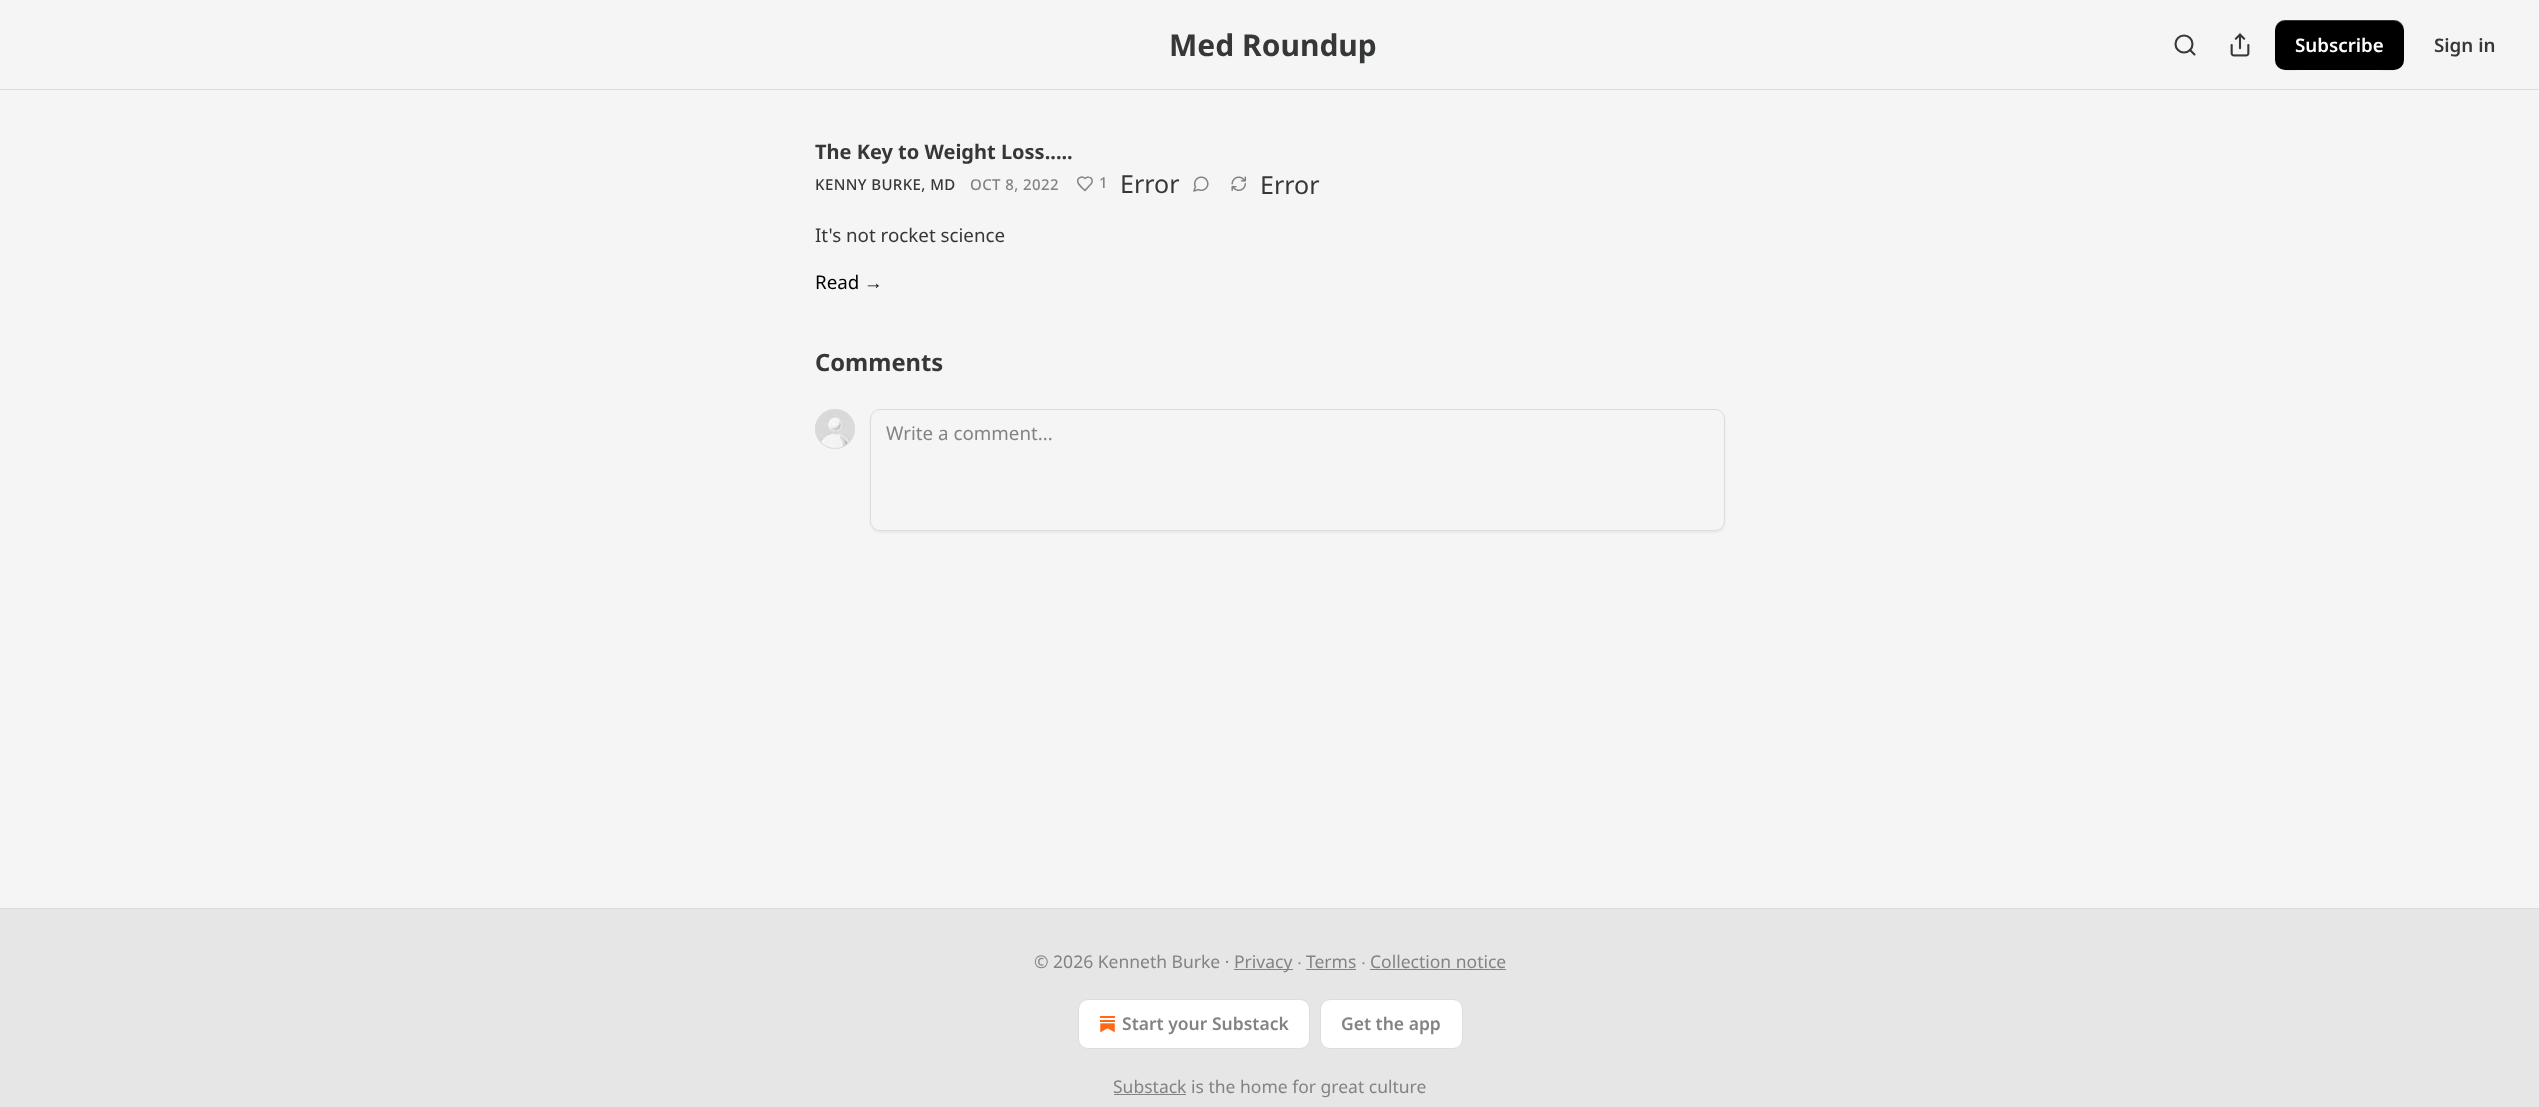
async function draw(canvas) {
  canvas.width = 2539
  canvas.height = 1107
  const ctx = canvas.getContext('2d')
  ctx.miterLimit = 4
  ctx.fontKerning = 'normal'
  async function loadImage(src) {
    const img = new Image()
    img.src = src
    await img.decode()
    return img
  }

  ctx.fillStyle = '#f5f5f5'
  ctx.fillRect(0, 0, 2539, 1107)
  ctx.fillStyle = '#ddd'
  ctx.fillRect(0, 89, 2539, 1)
  ctx.font = 'bold 30px Noto Sans'
  ctx.fillStyle = '#363737'
  ctx.fillText('Med Roundup', 1169, 56)
  ctx.beginPath()
  ctx.arc(2184, 44, 8.5, 0, 2 * Math.PI)
  ctx.strokeStyle = '#363737'
  ctx.lineWidth = 2.1
  ctx.stroke()
  ctx.beginPath()
  ctx.moveTo(2194.5, 54.5)
  ctx.lineTo(2190, 50)
  ctx.lineCap = 'round'
  ctx.lineJoin = 'round'
  ctx.stroke()
  ctx.drawImage(await loadImage('image0.png'), 2230, 33, 20, 24)
  ctx.fillStyle = '#000'
  ctx.beginPath()
  ctx.roundRect(2275, 20, 129, 50, 10)
  ctx.fill()
  ctx.fillStyle = '#0000001a'
  ctx.beginPath()
  ctx.moveTo(2275, 59)
  ctx.bezierCurveTo(2275, 74, 2293, 70, 2303, 70)
  ctx.lineTo(2376, 70)
  ctx.bezierCurveTo(2386, 70, 2404, 74, 2404, 59)
  ctx.bezierCurveTo(2404, 64, 2399, 69, 2394, 69)
  ctx.lineTo(2285, 69)
  ctx.bezierCurveTo(2279, 69, 2275, 64, 2275, 59)
  ctx.closePath()
  ctx.fill()
  ctx.fillStyle = '#ffffff33'
  ctx.beginPath()
  ctx.moveTo(2285, 21)
  ctx.lineTo(2394, 21)
  ctx.bezierCurveTo(2399, 21, 2404, 26, 2404, 31)
  ctx.bezierCurveTo(2404, 16, 2386, 20, 2376, 20)
  ctx.lineTo(2303, 20)
  ctx.bezierCurveTo(2293, 20, 2275, 16, 2275, 31)
  ctx.bezierCurveTo(2275, 26, 2279, 21, 2285, 21)
  ctx.closePath()
  ctx.fill()
  ctx.font = '600 18.75px Noto Sans'
  ctx.fillStyle = '#fff'
  ctx.fillText('Subscribe', 2295, 52)
  ctx.fillStyle = '#363737'
  ctx.fillText('Sign in', 2434, 52)
  ctx.font = 'bold 20px Noto Sans'
  ctx.fillText('The Key to Weight Loss.....', 815, 159)
  ctx.letterSpacing = '0.4px'
  ctx.font = '500 15px Noto Sans'
  ctx.fillText('KENNY BURKE, MD', 815, 190)
  ctx.fillStyle = '#828383'
  ctx.fillText('OCT 8, 2022', 970, 190)
  ctx.beginPath()
  ctx.moveTo(1090, 185)
  ctx.bezierCurveTo(1095.5, 180, 1089.5, 174.5, 1085, 178.5)
  ctx.bezierCurveTo(1082, 175.5, 1076.5, 178, 1078, 182.5)
  ctx.bezierCurveTo(1078.5, 185, 1083, 188.5, 1085, 190.5)
  ctx.closePath()
  ctx.strokeStyle = '#828383'
  ctx.lineWidth = 1.5
  ctx.stroke()
  ctx.fillText('1', 1099, 188)
  ctx.letterSpacing = '0px'
  ctx.font = '25px Noto Sans'
  ctx.fillStyle = '#363737'
  ctx.fillText('Error', 1120, 193)
  ctx.drawImage(await loadImage('image1.png'), 1193, 176, 16, 16)
  ctx.drawImage(await loadImage('image2.png'), 1231, 176, 16, 15)
  ctx.fillText('Error', 1260, 194)
  ctx.font = '18.75px Noto Sans'
  ctx.fillText('It\'s not rocket science', 815, 242)
  ctx.fillStyle = '#000'
  ctx.fillText('Read', 815, 289)
  ctx.font = '18.75px Liberation Sans'
  ctx.fillText('→', 864, 289)
  ctx.font = 'bold 23.75px Noto Sans'
  ctx.fillStyle = '#363737'
  ctx.fillText('Comments', 815, 371)
  ctx.beginPath()
  ctx.arc(835, 429, 19.5, 0, 2 * Math.PI)
  ctx.strokeStyle = '#ddd'
  ctx.lineWidth = 1
  ctx.stroke()
  ctx.drawImage(await loadImage('image3.png'), 815, 409, 40, 40)
  ctx.beginPath()
  ctx.arc(835, 429, 19.5, 0, 2 * Math.PI)
  ctx.stroke()
  ctx.fillStyle = '#0000000d'
  ctx.filter = 'blur(1px)'
  ctx.beginPath()
  ctx.roundRect(870, 410, 855, 123, 10)
  ctx.fill()
  ctx.filter = 'none'
  ctx.fillStyle = '#f5f5f5'
  ctx.beginPath()
  ctx.roundRect(870.5, 409.5, 854, 121, 9.5)
  ctx.fill()
  ctx.lineJoin = 'miter'
  ctx.stroke()
  ctx.font = '18.75px Noto Sans'
  ctx.fillStyle = '#828383'
  ctx.fillText('Write a comment...', 886, 440)
  ctx.fillStyle = '#e6e6e6'
  ctx.fillRect(0, 909, 2539, 198)
  ctx.fillStyle = '#ddd'
  ctx.fillRect(0, 908, 2539, 1)
  ctx.font = '17.5px Noto Sans'
  ctx.fillStyle = '#828383'
  ctx.fillText('© 2026 Kenneth Burke ·', 1034, 968)
  ctx.fillRect(1234, 969, 59, 1)
  ctx.fillText('Privacy', 1234, 968)
  ctx.font = '17.5px Liberation Sans'
  ctx.fillText('∙', 1297, 968)
  ctx.font = '17.5px Noto Sans'
  ctx.fillText('Terms', 1306, 968)
  ctx.fillRect(1306, 969, 50, 1)
  ctx.font = '17.5px Liberation Sans'
  ctx.fillText('∙', 1361, 968)
  ctx.font = '17.5px Noto Sans'
  ctx.fillText('Collection notice', 1370, 968)
  ctx.fillRect(1370, 969, 136, 1)
  ctx.fillStyle = '#fff'
  ctx.beginPath()
  ctx.roundRect(1078.5, 999.5, 231, 49, 9.5)
  ctx.fill()
  ctx.stroke()
  ctx.drawImage(await loadImage('image4.png'), 1100, 1016, 15, 17)
  ctx.font = '600 17.5px Noto Sans'
  ctx.fillStyle = '#828383'
  ctx.fillText('Start your Substack', 1122, 1030)
  ctx.fillStyle = '#fff'
  ctx.beginPath()
  ctx.roundRect(1320.5, 999.5, 142, 49, 9.5)
  ctx.fill()
  ctx.stroke()
  ctx.fillStyle = '#828383'
  ctx.fillText('Get the app', 1341, 1030)
  ctx.fillRect(1114, 1094, 72, 1)
  ctx.font = '17.5px Noto Sans'
  ctx.fillText('Substack is the home for great culture', 1113, 1093)
}

draw(document.querySelector('canvas'))
